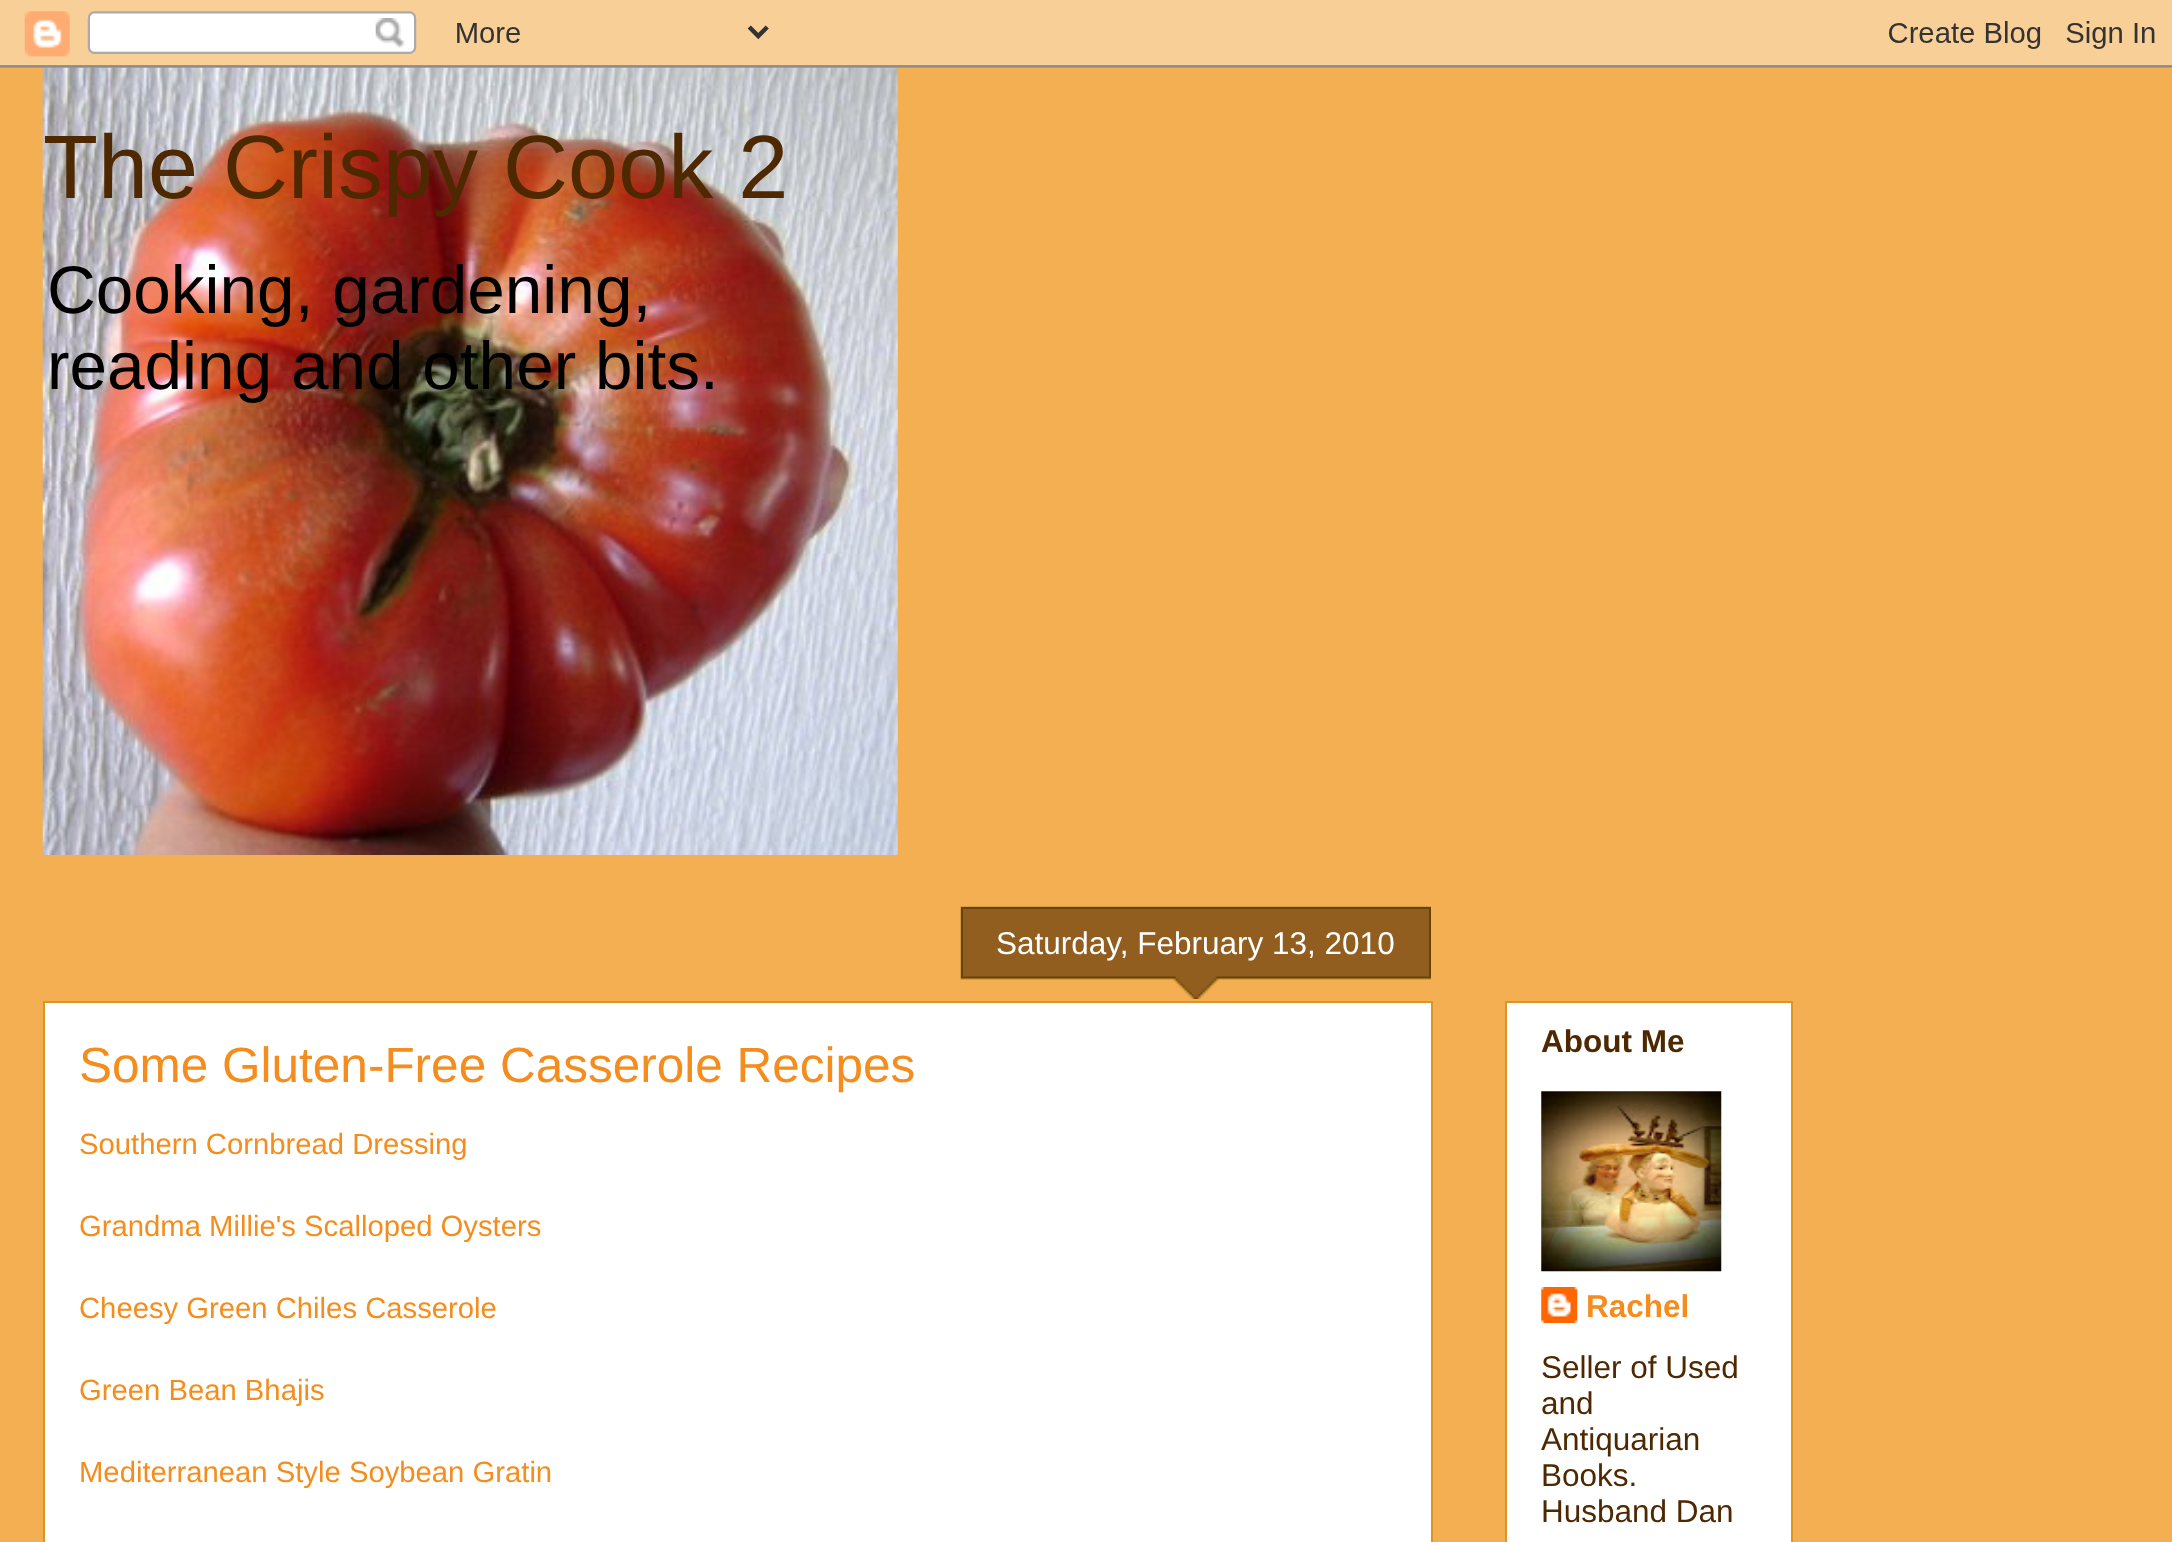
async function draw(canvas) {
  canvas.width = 2172
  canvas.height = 1542
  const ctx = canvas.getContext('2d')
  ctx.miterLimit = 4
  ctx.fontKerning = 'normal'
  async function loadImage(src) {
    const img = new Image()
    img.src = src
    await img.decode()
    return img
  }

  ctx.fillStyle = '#f4af52'
  ctx.fillRect(0, 0, 2172, 1542)
  ctx.drawImage(await loadImage('image1.png'), 42, 67, 856, 788)
  ctx.drawImage(await loadImage('image0.png'), 0, 0, 2172, 68)
  ctx.font = '90px Liberation Sans'
  ctx.fillStyle = '#4e2800'
  ctx.fillText('The Crispy Cook 2', 43, 198)
  ctx.font = '67.5px Liberation Sans'
  ctx.fillStyle = '#000'
  ctx.fillText('Cooking, gardening,', 47, 313)
  ctx.fillText('reading and other bits.', 47, 389)
  ctx.fillStyle = '#fff'
  ctx.beginPath()
  ctx.rect(44, 1002, 1388, 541)
  ctx.fill()
  ctx.strokeStyle = '#dc9522'
  ctx.lineWidth = 2
  ctx.stroke()
  ctx.drawImage(await loadImage('image2.png'), 960, 906, 471, 93)
  ctx.fillStyle = '#640'
  ctx.fillRect(961, 907, 470, 2)
  ctx.fillRect(1429, 909, 2, 68)
  ctx.fillRect(961, 909, 2, 68)
  ctx.font = '31.5px Liberation Sans'
  ctx.fillStyle = '#fff'
  ctx.fillText('Saturday, February 13, 2010', 996, 954)
  ctx.font = '49.5px Liberation Sans'
  ctx.fillStyle = '#f48d1d'
  ctx.fillText('Some Gluten-Free Casserole Recipes', 79, 1082)
  ctx.font = '29.25px Liberation Sans'
  ctx.fillText('Southern Cornbread Dressing', 79, 1154)
  ctx.fillText('Grandma Millie\'s Scalloped Oysters', 79, 1236)
  ctx.fillText('Cheesy Green Chiles Casserole', 79, 1318)
  ctx.fillText('Green Bean Bhajis', 79, 1400)
  ctx.fillText('Mediterranean Style Soybean Gratin', 79, 1482)
  ctx.fillStyle = '#fff'
  ctx.beginPath()
  ctx.rect(1506, 1002, 286, 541)
  ctx.fill()
  ctx.stroke()
  ctx.font = 'bold 31.5px Liberation Sans'
  ctx.fillStyle = '#4e2800'
  ctx.fillText('About Me', 1541, 1052)
  ctx.drawImage(await loadImage('image3.png'), 1541, 1091, 181, 181)
  ctx.drawImage(await loadImage('image4.png'), 1541, 1287, 37, 36)
  ctx.fillStyle = '#f48d1d'
  ctx.fillText('Rachel', 1586, 1317)
  ctx.font = '31.5px Liberation Sans'
  ctx.fillStyle = '#4e2800'
  ctx.fillText('Seller of Used', 1541, 1378)
  ctx.fillText('and', 1541, 1414)
  ctx.fillText('Antiquarian', 1541, 1450)
  ctx.fillText('Books.', 1541, 1486)
  ctx.fillText('Husband Dan', 1541, 1522)
}

draw(document.querySelector('canvas'))
